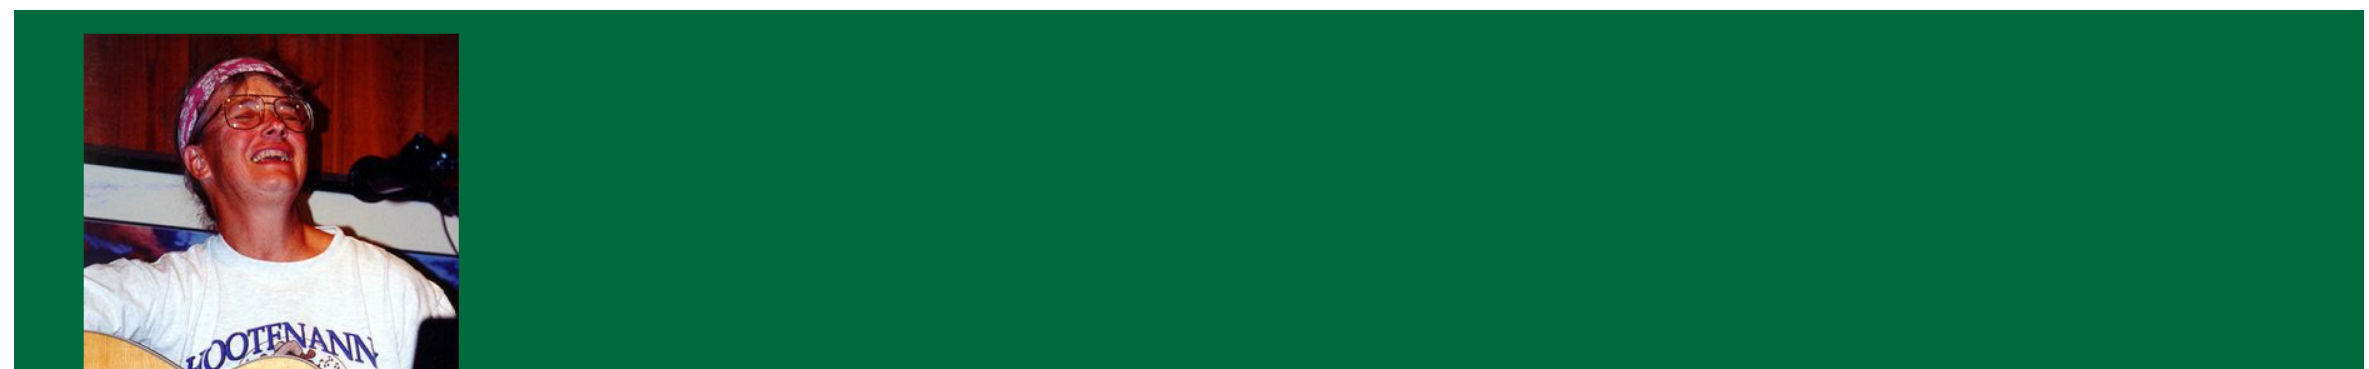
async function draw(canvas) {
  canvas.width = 2369
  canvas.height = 369
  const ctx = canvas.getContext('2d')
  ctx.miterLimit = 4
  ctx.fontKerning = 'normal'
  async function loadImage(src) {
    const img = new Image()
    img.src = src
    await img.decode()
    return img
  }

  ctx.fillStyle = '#fff'
  ctx.fillRect(0, 0, 2369, 369)
  ctx.fillStyle = '#00693e'
  ctx.fillRect(14, 10, 2350, 359)
  ctx.drawImage(await loadImage('image0.png'), 83, 33, 376, 336)
}

draw(document.querySelector('canvas'))
